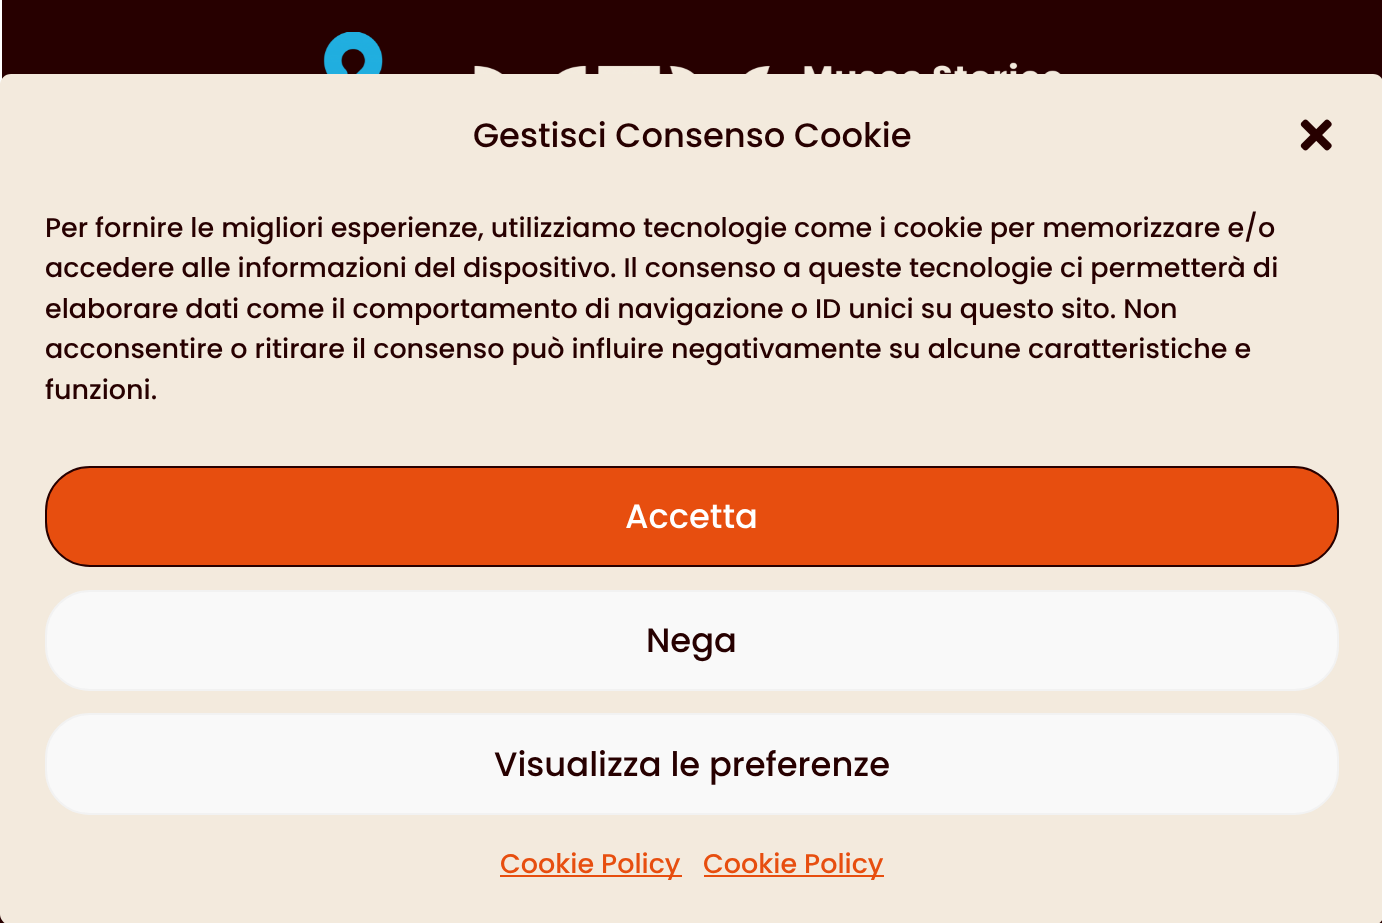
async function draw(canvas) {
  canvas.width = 1382
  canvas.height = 923
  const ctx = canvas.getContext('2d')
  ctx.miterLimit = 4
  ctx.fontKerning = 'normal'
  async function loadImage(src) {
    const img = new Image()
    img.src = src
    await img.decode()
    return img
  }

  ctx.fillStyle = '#270000'
  ctx.fillRect(0, 0, 1382, 923)
  ctx.fillStyle = '#fff'
  ctx.fillRect(0, 0, 2, 85)
  ctx.drawImage(await loadImage('image0.png'), 323, 32, 738, 42)
  ctx.fillStyle = '#f3eadd'
  ctx.beginPath()
  ctx.roundRect(0, 74, 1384, 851, 11)
  ctx.fill()
  ctx.font = '500 33.75px Poppins'
  ctx.fillStyle = '#270000'
  ctx.fillText('Gestisci Consenso Cookie', 473, 147)
  ctx.drawImage(await loadImage('image1.png'), 1300, 119, 32, 32)
  ctx.font = '500 27px Poppins'
  ctx.fillText('Per fornire le migliori esperienze, utilizziamo tecnologie come i cookie per memorizzare e/o', 45, 237)
  ctx.fillText('accedere alle informazioni del dispositivo. Il consenso a queste tecnologie ci permetterà di', 45, 277)
  ctx.fillText('elaborare dati come il comportamento di navigazione o ID unici su questo sito. Non', 45, 318)
  ctx.fillText('acconsentire o ritirare il consenso può influire negativamente su alcune caratteristiche e', 45, 358)
  ctx.fillText('funzioni.', 45, 399)
  ctx.fillStyle = '#e74e0f'
  ctx.beginPath()
  ctx.roundRect(46, 467, 1292, 99, 44)
  ctx.fill()
  ctx.strokeStyle = '#270000'
  ctx.lineWidth = 2
  ctx.stroke()
  ctx.font = '500 33.75px Poppins'
  ctx.fillStyle = '#fff'
  ctx.fillText('Accetta', 625, 528)
  ctx.fillStyle = '#f9f9f9'
  ctx.beginPath()
  ctx.roundRect(46, 591, 1292, 99, 44)
  ctx.fill()
  ctx.strokeStyle = '#f2f2f2'
  ctx.stroke()
  ctx.fillStyle = '#270000'
  ctx.fillText('Nega', 646, 652)
  ctx.fillStyle = '#f9f9f9'
  ctx.beginPath()
  ctx.roundRect(46, 714, 1292, 100, 44)
  ctx.fill()
  ctx.stroke()
  ctx.fillStyle = '#270000'
  ctx.fillText('Visualizza le preferenze', 494, 776)
  ctx.fillStyle = '#e74e0f'
  ctx.fillRect(500, 875, 182, 2)
  ctx.font = '500 27px Poppins'
  ctx.fillText('Cookie Policy', 500, 873)
  ctx.fillRect(704, 875, 180, 2)
  ctx.fillText('Cookie Policy', 703, 873)
}

draw(document.querySelector('canvas'))
